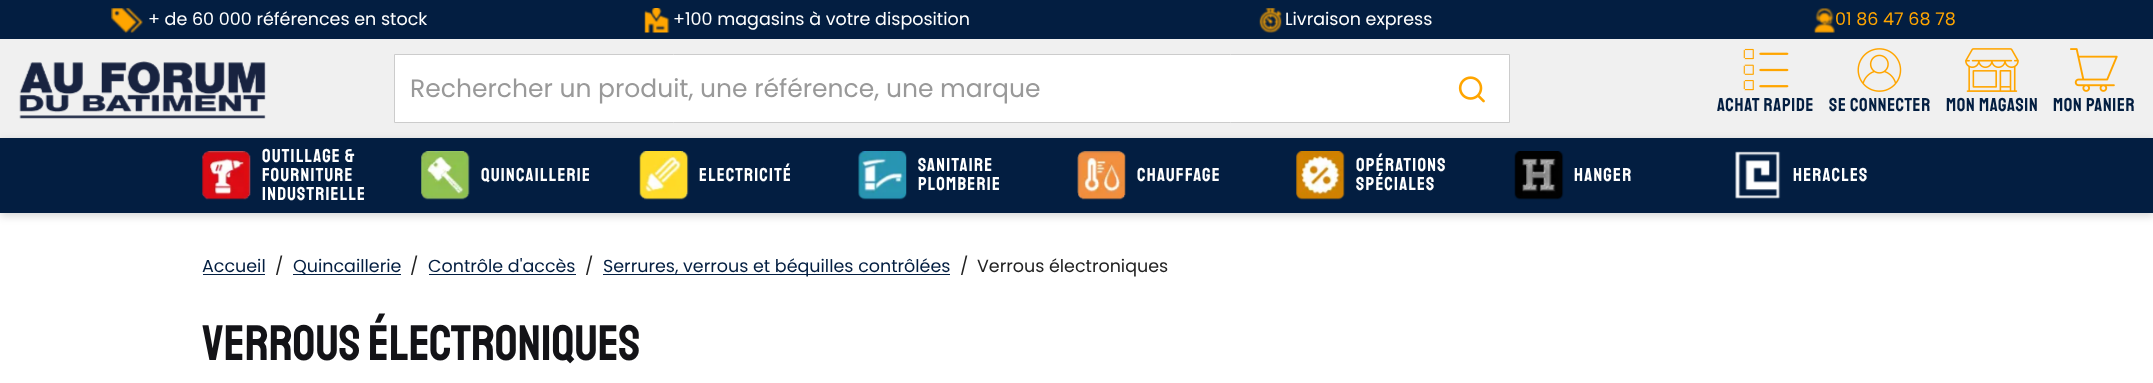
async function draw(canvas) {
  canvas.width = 2153
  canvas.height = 383
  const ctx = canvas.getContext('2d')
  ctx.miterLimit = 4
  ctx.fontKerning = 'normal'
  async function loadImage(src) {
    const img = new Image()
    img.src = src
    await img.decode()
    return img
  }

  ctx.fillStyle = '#fff'
  ctx.fillRect(0, 0, 2153, 383)
  ctx.fillStyle = '#031e41'
  ctx.fillRect(0, 0, 2153, 39)
  ctx.drawImage(await loadImage('image0.png'), 111, 8, 32, 25)
  ctx.font = '17.5px Poppins'
  ctx.fillStyle = '#fff'
  ctx.fillText('+ de 60 000 références en stock', 148, 25)
  ctx.drawImage(await loadImage('image1.png'), 644, 8, 26, 25)
  ctx.fillText('+100 magasins à votre disposition', 673, 25)
  ctx.drawImage(await loadImage('image2.png'), 1259, 8, 23, 25)
  ctx.fillText('Livraison express', 1285, 25)
  ctx.drawImage(await loadImage('image3.png'), 1813, 8, 22, 25)
  ctx.fillStyle = '#ffa500'
  ctx.fillText('01 86 47 68 78', 1835, 25)
  ctx.fillStyle = '#f0f0f0'
  ctx.fillRect(0, 39, 2153, 99)
  ctx.drawImage(await loadImage('image4.png'), 19, 61, 247, 58)
  ctx.fillStyle = '#fff'
  ctx.beginPath()
  ctx.rect(394.5, 54.5, 1115, 68)
  ctx.fill()
  ctx.strokeStyle = '#ccc'
  ctx.stroke()
  ctx.font = '25px Poppins'
  ctx.fillStyle = '#999'
  ctx.fillText('Rechercher un produit, une référence, une marque', 410, 97)
  ctx.drawImage(await loadImage('image5.png'), 1458, 76, 27, 27)
  ctx.drawImage(await loadImage('image6.png'), 1743, 48, 46, 43)
  ctx.letterSpacing = '0.7px'
  ctx.font = '18.75px Staatliches'
  ctx.fillStyle = '#031e41'
  ctx.fillText('ACHAT RAPIDE', 1717, 111)
  ctx.drawImage(await loadImage('image7.png'), 1857, 48, 45, 44)
  ctx.fillText('SE CONNECTER', 1829, 111)
  ctx.drawImage(await loadImage('image8.png'), 1965, 48, 54, 44)
  ctx.fillText('MON MAGASIN', 1946, 111)
  ctx.drawImage(await loadImage('image9.png'), 2070, 48, 48, 44)
  ctx.fillText('MON PANIER', 2053, 111)
  ctx.fillStyle = '#00000029'
  ctx.filter = 'blur(4px)'
  ctx.beginPath()
  ctx.rect(0, 141, 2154, 75)
  ctx.fill()
  ctx.filter = 'none'
  ctx.fillStyle = '#031e41'
  ctx.fillRect(0, 138, 2153, 75)
  ctx.drawImage(await loadImage('image10.png'), 202, 151, 49, 49)
  ctx.letterSpacing = '1.25px'
  ctx.fillStyle = '#fff'
  ctx.fillText('Outillage &', 262, 162)
  ctx.fillText('Fourniture', 262, 181)
  ctx.fillText('industrielle', 262, 200)
  ctx.drawImage(await loadImage('image11.png'), 421, 151, 49, 49)
  ctx.fillText('Quincaillerie', 481, 181)
  ctx.drawImage(await loadImage('image12.png'), 639, 151, 50, 49)
  ctx.fillText('Electricité', 699, 181)
  ctx.drawImage(await loadImage('image13.png'), 858, 151, 49, 49)
  ctx.fillText('Sanitaire', 918, 171)
  ctx.fillText('Plomberie', 918, 190)
  ctx.drawImage(await loadImage('image14.png'), 1077, 151, 49, 49)
  ctx.fillText('Chauffage', 1137, 181)
  ctx.drawImage(await loadImage('image15.png'), 1296, 151, 49, 49)
  ctx.fillText('Opérations', 1356, 171)
  ctx.fillText('spéciales', 1356, 190)
  ctx.drawImage(await loadImage('image16.png'), 1514, 151, 50, 49)
  ctx.fillText('HANGER', 1574, 181)
  ctx.drawImage(await loadImage('image17.png'), 1735, 151, 46, 48)
  ctx.fillText('HERACLES', 1793, 181)
  ctx.letterSpacing = '0px'
  ctx.font = '17.5px Poppins'
  ctx.fillStyle = '#031e41'
  ctx.fillText('Accueil', 202, 272)
  ctx.fillRect(203, 274, 62, 1)
  ctx.fillStyle = '#222'
  ctx.fillText('/', 275, 272)
  ctx.fillStyle = '#031e41'
  ctx.fillRect(293, 274, 108, 1)
  ctx.fillText('Quincaillerie', 293, 272)
  ctx.fillStyle = '#222'
  ctx.fillText('/', 410, 272)
  ctx.fillStyle = '#031e41'
  ctx.fillText('Contrôle d\'accès', 428, 272)
  ctx.fillRect(429, 274, 147, 1)
  ctx.fillStyle = '#222'
  ctx.fillText('/', 585, 272)
  ctx.fillStyle = '#031e41'
  ctx.fillRect(603, 274, 347, 1)
  ctx.fillText('Serrures, verrous et béquilles contrôlées', 603, 272)
  ctx.fillStyle = '#222'
  ctx.fillText('/', 960, 272)
  ctx.fillText('Verrous électroniques', 977, 272)
  ctx.font = '50px Staatliches'
  ctx.fillStyle = '#131317'
  ctx.fillText('VERROUS ÉLECTRONIQUES', 202, 360)
}

draw(document.querySelector('canvas'))
